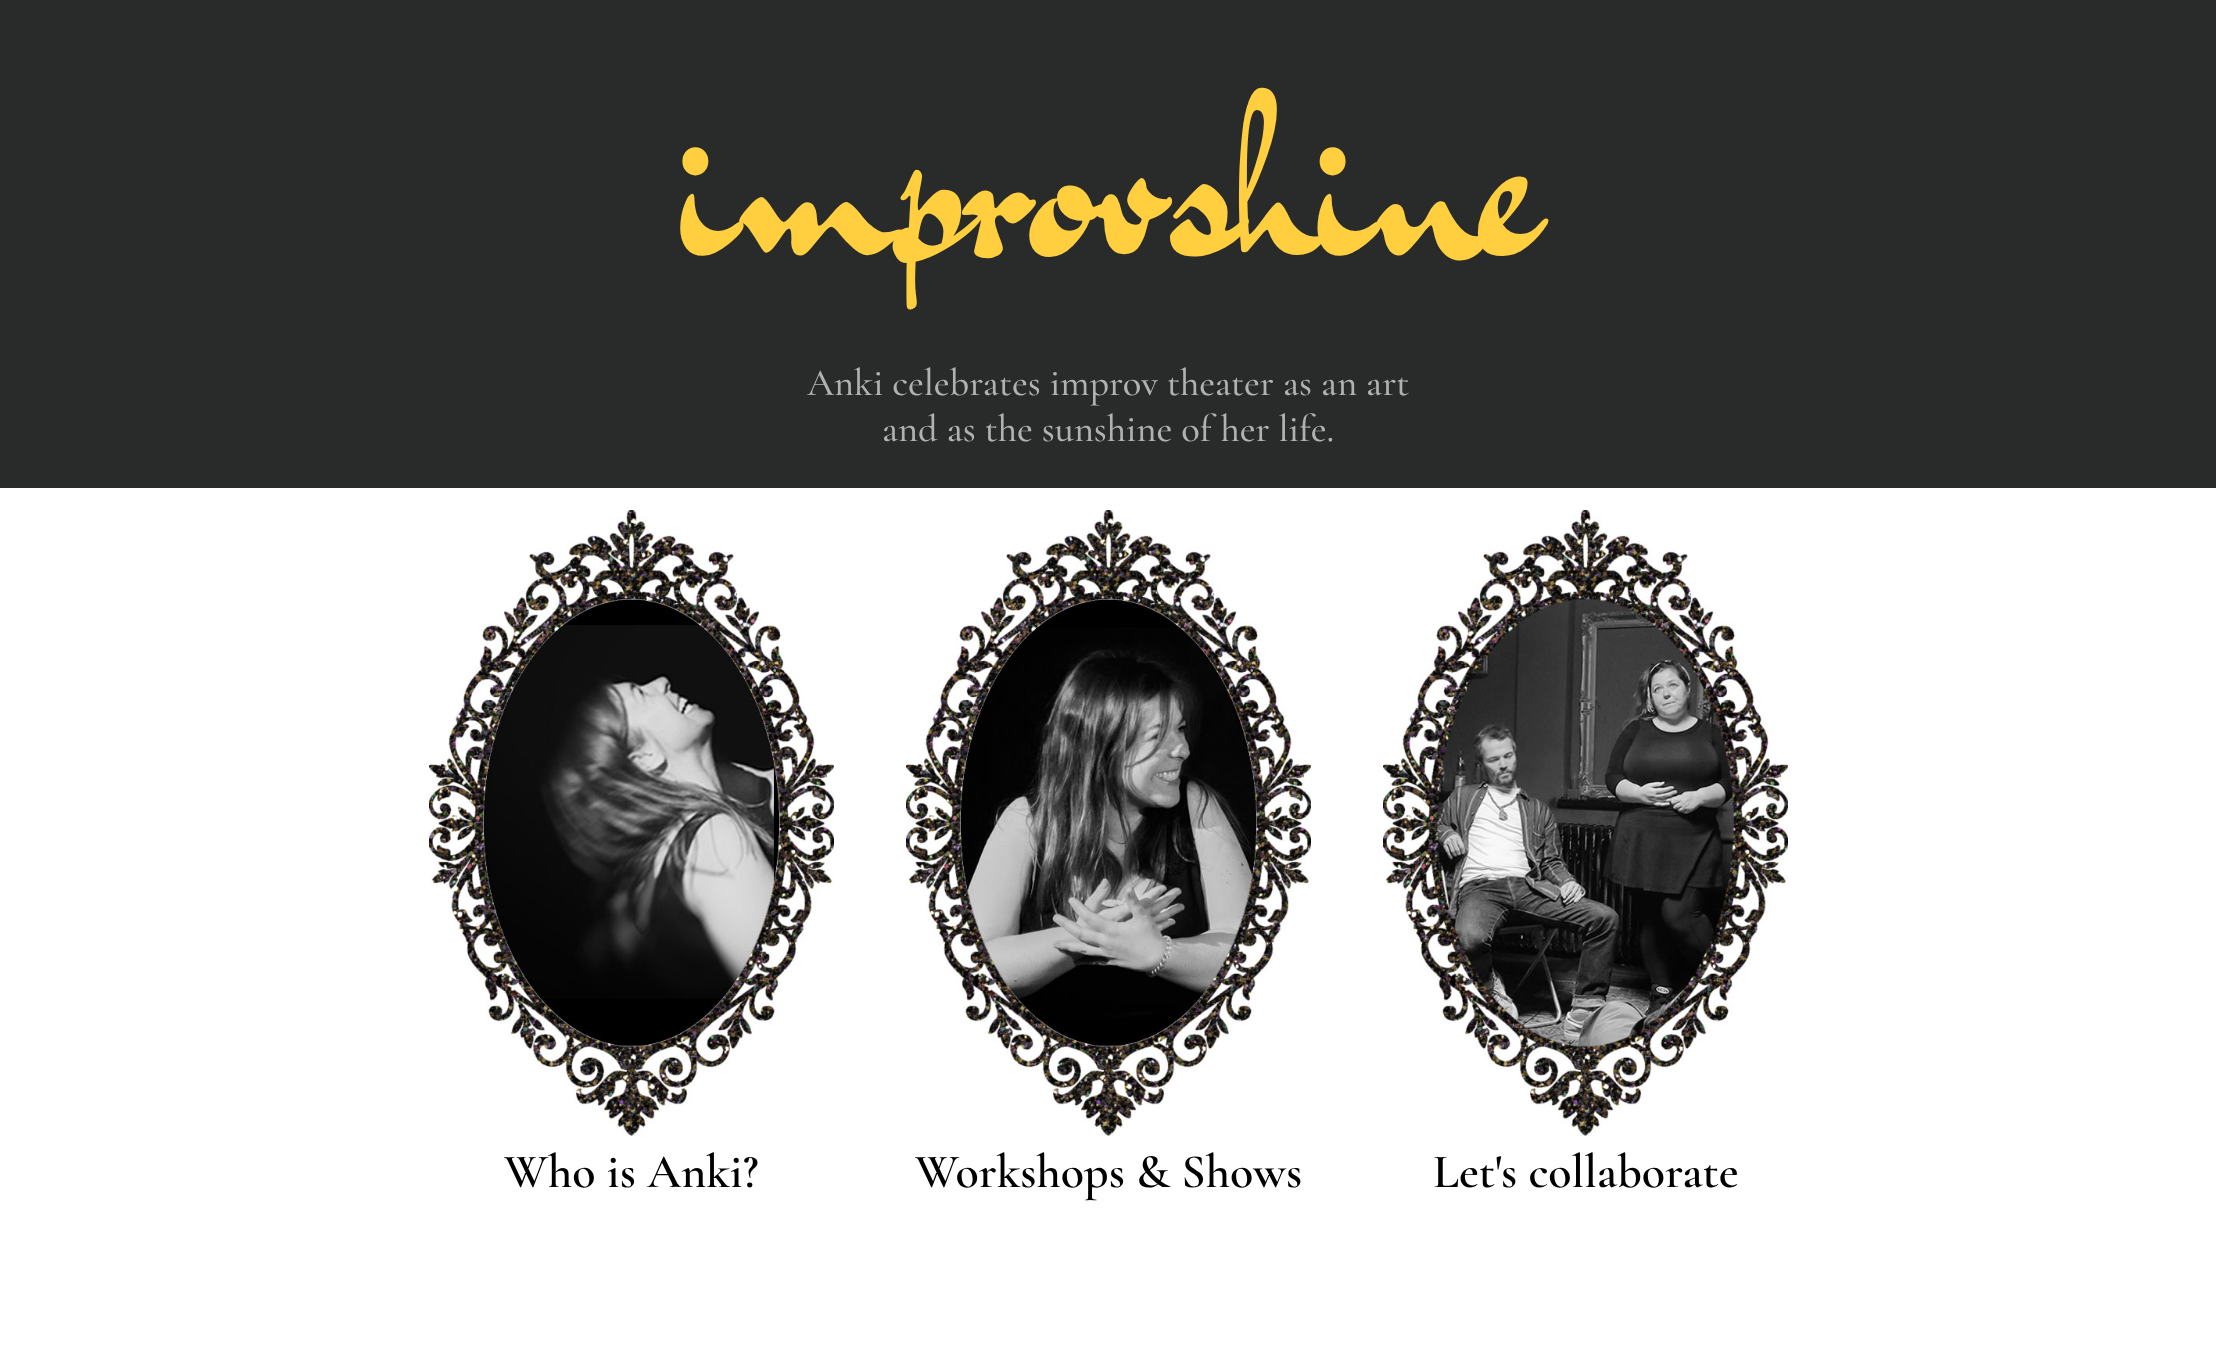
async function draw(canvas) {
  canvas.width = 2216
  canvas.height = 1347
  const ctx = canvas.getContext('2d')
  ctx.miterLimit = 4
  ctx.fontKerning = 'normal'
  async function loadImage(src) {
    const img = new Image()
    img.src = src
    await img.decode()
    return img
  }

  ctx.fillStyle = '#fff'
  ctx.fillRect(0, 0, 2216, 1347)
  ctx.fillStyle = '#282b29'
  ctx.fillRect(0, 0, 2216, 488)
  ctx.font = '240px Dr Sugiyama'
  ctx.fillStyle = '#ffcf40'
  ctx.fillText('improvshine', 680, 246)
  ctx.font = '500 38.4px Cormorant Garamond'
  ctx.fillStyle = '#b1b1b1'
  ctx.fillText('Anki celebrates improv theater as an art', 807, 395)
  ctx.fillText('and as the sunshine of her life.', 882, 441)
  ctx.drawImage(await loadImage('image0.png'), 429, 510, 405, 626)
  ctx.font = '600 48px Cormorant Garamond'
  ctx.fillStyle = '#000'
  ctx.fillText('Who is Anki?', 504, 1187)
  ctx.drawImage(await loadImage('image1.png'), 906, 510, 405, 626)
  ctx.fillText('Workshops & Shows', 915, 1187)
  ctx.drawImage(await loadImage('image2.png'), 1383, 510, 405, 626)
  ctx.fillText('Let\'s collaborate', 1433, 1187)
}

draw(document.querySelector('canvas'))
